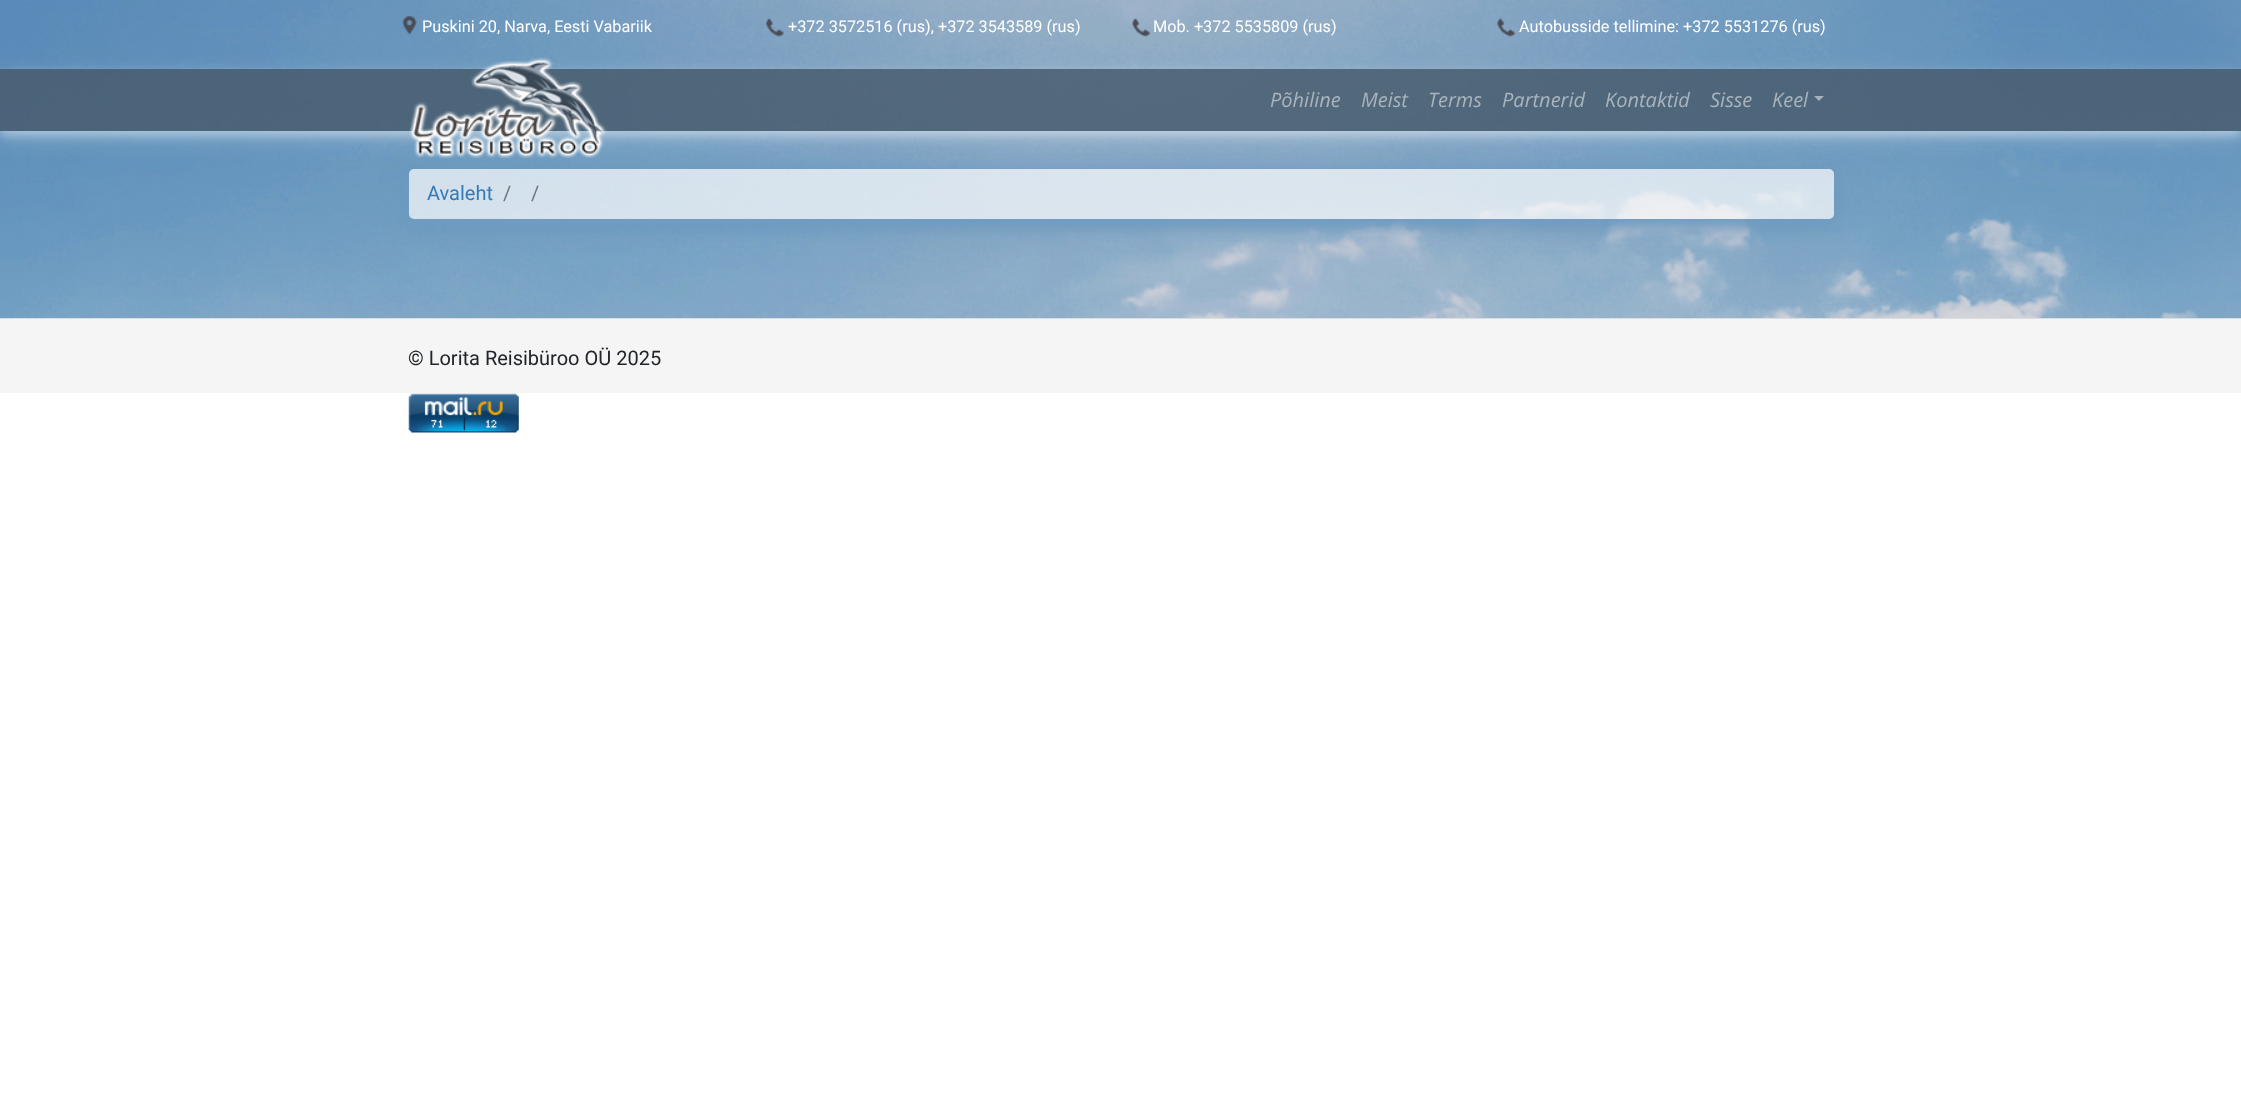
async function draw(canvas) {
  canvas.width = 2241
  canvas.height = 1113
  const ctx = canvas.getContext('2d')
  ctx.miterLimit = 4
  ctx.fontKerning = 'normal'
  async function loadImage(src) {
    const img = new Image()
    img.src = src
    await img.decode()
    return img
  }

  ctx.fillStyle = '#fff'
  ctx.fillRect(0, 0, 2241, 1113)
  ctx.drawImage(await loadImage('image0.png'), 0, 0, 2241, 318)
  ctx.drawImage(await loadImage('image1.png'), 402, 16, 15, 19)
  ctx.font = '16.25px Roboto'
  ctx.fillText('Puskini 20, Narva, Eesti Vabariik', 422, 32)
  ctx.drawImage(await loadImage('image2.png'), 766, 18, 18, 19)
  ctx.fillText('+372 3572516 (rus), +372 3543589 (rus)', 788, 32)
  ctx.drawImage(await loadImage('image3.png'), 1132, 18, 19, 19)
  ctx.fillText('Mob. +372 5535809 (rus)', 1153, 32)
  ctx.drawImage(await loadImage('image4.png'), 1497, 18, 19, 19)
  ctx.fillText('Autobusside tellimine: +372 5531276 (rus)', 1519, 32)
  ctx.save()
  ctx.beginPath()
  ctx.moveTo(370, 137)
  ctx.lineTo(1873, 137)
  ctx.lineTo(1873, 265)
  ctx.lineTo(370, 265)
  ctx.closePath()
  ctx.moveTo(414, 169)
  ctx.lineTo(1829, 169)
  ctx.bezierCurveTo(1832, 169, 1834, 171, 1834, 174)
  ctx.lineTo(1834, 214)
  ctx.bezierCurveTo(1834, 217, 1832, 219, 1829, 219)
  ctx.lineTo(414, 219)
  ctx.bezierCurveTo(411, 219, 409, 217, 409, 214)
  ctx.lineTo(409, 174)
  ctx.bezierCurveTo(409, 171, 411, 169, 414, 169)
  ctx.closePath()
  ctx.clip('evenodd')
  ctx.fillStyle = '#6795bc'
  ctx.filter = 'blur(12.5px)'
  ctx.beginPath()
  ctx.roundRect(409, 176, 1425, 50, 5)
  ctx.fill()
  ctx.filter = 'none'
  ctx.restore()
  ctx.save()
  ctx.beginPath()
  ctx.moveTo(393, 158)
  ctx.lineTo(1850, 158)
  ctx.lineTo(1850, 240)
  ctx.lineTo(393, 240)
  ctx.closePath()
  ctx.moveTo(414, 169)
  ctx.lineTo(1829, 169)
  ctx.bezierCurveTo(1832, 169, 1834, 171, 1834, 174)
  ctx.lineTo(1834, 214)
  ctx.bezierCurveTo(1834, 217, 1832, 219, 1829, 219)
  ctx.lineTo(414, 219)
  ctx.bezierCurveTo(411, 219, 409, 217, 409, 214)
  ctx.lineTo(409, 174)
  ctx.bezierCurveTo(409, 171, 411, 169, 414, 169)
  ctx.closePath()
  ctx.clip('evenodd')
  ctx.fillStyle = '#729dc3'
  ctx.filter = 'blur(5px)'
  ctx.beginPath()
  ctx.roundRect(409, 174, 1425, 50, 5)
  ctx.fill()
  ctx.filter = 'none'
  ctx.restore()
  ctx.fillStyle = '#ffffffb3'
  ctx.beginPath()
  ctx.roundRect(409, 169, 1425, 50, 5)
  ctx.fill()
  ctx.save()
  ctx.beginPath()
  ctx.moveTo(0, 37)
  ctx.lineTo(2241, 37)
  ctx.lineTo(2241, 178)
  ctx.lineTo(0, 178)
  ctx.closePath()
  ctx.moveTo(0, 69)
  ctx.lineTo(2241, 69)
  ctx.lineTo(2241, 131)
  ctx.lineTo(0, 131)
  ctx.closePath()
  ctx.clip('evenodd')
  ctx.fillStyle = '#ffffff30'
  ctx.filter = 'blur(12.5px)'
  ctx.beginPath()
  ctx.rect(0, 76, 2241, 63)
  ctx.fill()
  ctx.filter = 'none'
  ctx.restore()
  ctx.save()
  ctx.beginPath()
  ctx.moveTo(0, 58)
  ctx.lineTo(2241, 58)
  ctx.lineTo(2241, 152)
  ctx.lineTo(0, 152)
  ctx.closePath()
  ctx.moveTo(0, 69)
  ctx.lineTo(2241, 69)
  ctx.lineTo(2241, 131)
  ctx.lineTo(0, 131)
  ctx.closePath()
  ctx.clip('evenodd')
  ctx.fillStyle = '#ffffff5e'
  ctx.filter = 'blur(5px)'
  ctx.beginPath()
  ctx.rect(0, 74, 2241, 62)
  ctx.fill()
  ctx.filter = 'none'
  ctx.restore()
  ctx.fillStyle = '#465969cc'
  ctx.fillRect(0, 69, 2241, 62)
  ctx.drawImage(await loadImage('image5.png'), 409, 57, 198, 102)
  ctx.font = 'italic 20px Open Sans'
  ctx.fillStyle = '#a9b4bd'
  ctx.fillText('Põhiline', 1270, 107)
  ctx.fillText('Meist', 1361, 107)
  ctx.fillText('Terms', 1428, 107)
  ctx.fillText('Partnerid', 1502, 107)
  ctx.fillText('Kontaktid', 1605, 107)
  ctx.fillText('Sisse', 1710, 107)
  ctx.fillText('Keel', 1772, 107)
  ctx.fillStyle = '#a6b2bd'
  ctx.beginPath()
  ctx.moveTo(1814, 96)
  ctx.lineTo(1824, 96)
  ctx.lineTo(1819, 101)
  ctx.closePath()
  ctx.fill()
  ctx.font = '20px Roboto'
  ctx.fillStyle = '#337ab7'
  ctx.fillText('Avaleht', 427, 200)
  ctx.fillStyle = '#6c757d'
  ctx.fillText('/', 503, 200)
  ctx.fillText('/', 531, 200)
  ctx.fillStyle = '#f5f5f5'
  ctx.fillRect(0, 319, 2241, 74)
  ctx.fillStyle = '#ddd'
  ctx.fillRect(0, 318, 2241, 1)
  ctx.fillStyle = '#212529'
  ctx.fillText('© Lorita Reisibüroo OÜ 2025', 408, 365)
  ctx.drawImage(await loadImage('image6.png'), 408, 393, 111, 40)
}

draw(document.querySelector('canvas'))
